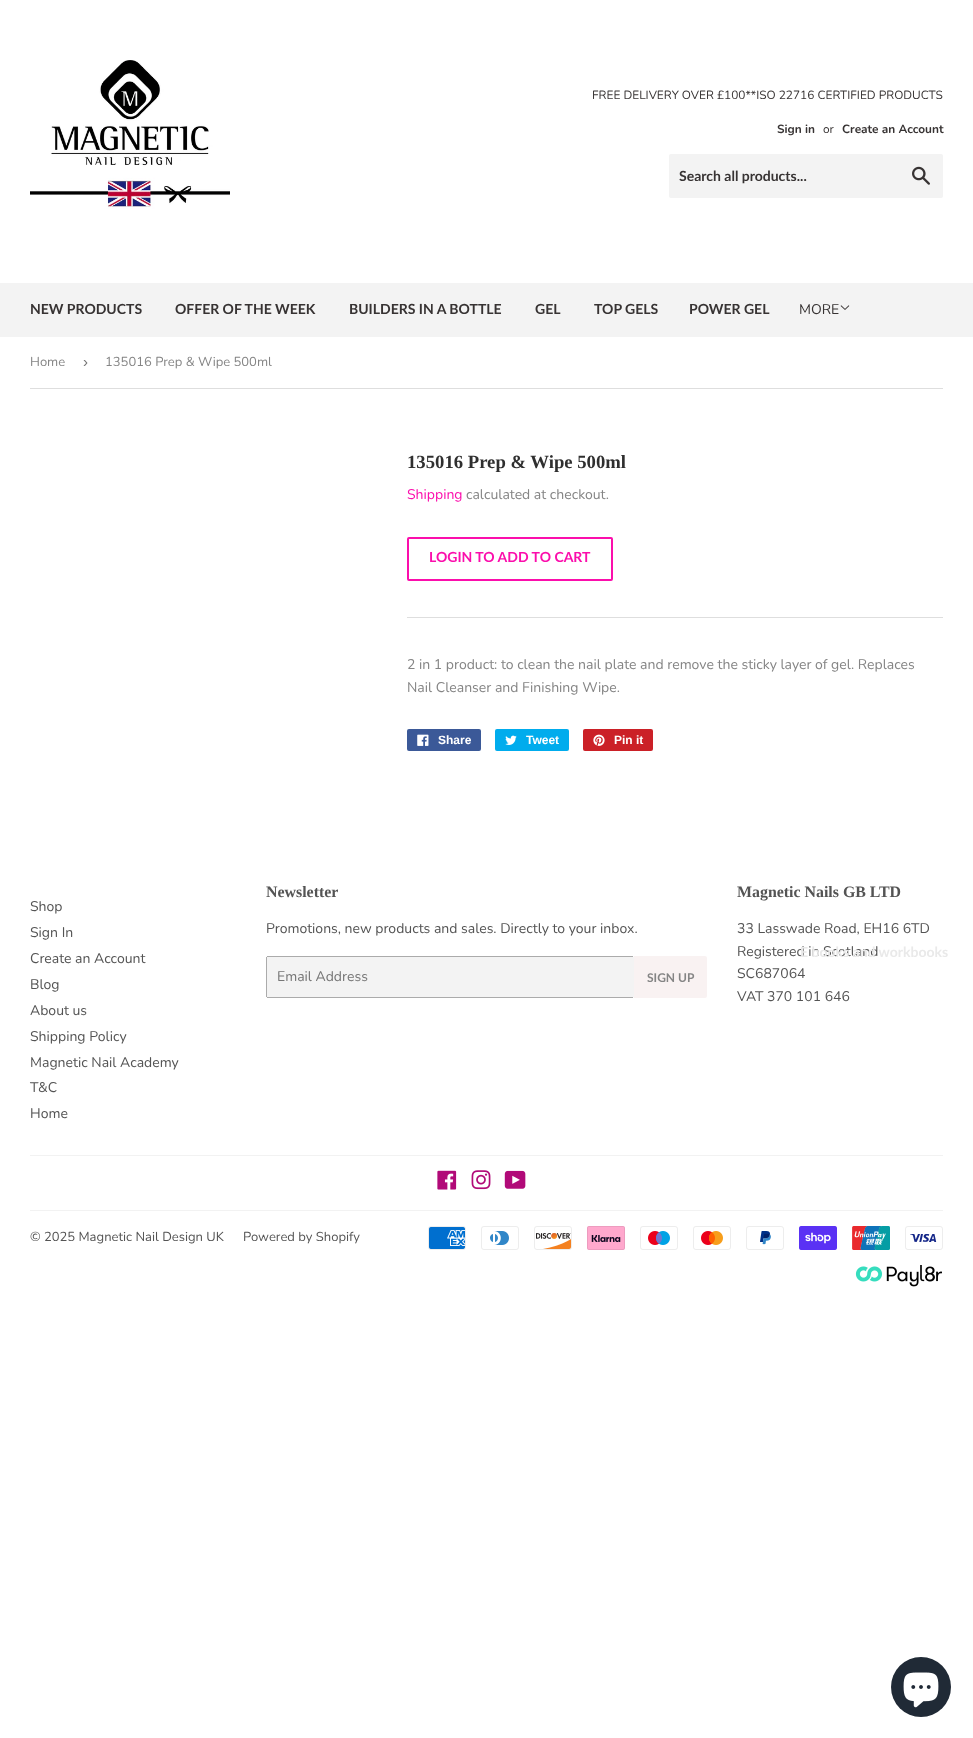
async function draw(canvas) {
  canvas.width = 973
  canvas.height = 1738
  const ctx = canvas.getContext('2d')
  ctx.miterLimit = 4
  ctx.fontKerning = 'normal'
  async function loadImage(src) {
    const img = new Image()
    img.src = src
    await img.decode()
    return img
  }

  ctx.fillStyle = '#fff'
  ctx.fillRect(0, 0, 973, 1738)
  ctx.drawImage(await loadImage('image0.png'), 30, 60, 200, 149)
  ctx.font = '11.9px Nunito'
  ctx.fillStyle = '#373333'
  ctx.fillText('FREE DELIVERY OVER £100**ISO 22716 CERTIFIED PRODUCTS', 592, 99)
  ctx.font = 'bold 11.9px Nunito'
  ctx.fillText('Sign in', 777, 133)
  ctx.font = '11.9px Nunito'
  ctx.fillText('or', 823, 133)
  ctx.font = 'bold 11.9px Nunito'
  ctx.fillText('Create an Account', 842, 133)
  ctx.fillStyle = '#f3f3f3'
  ctx.beginPath()
  ctx.roundRect(669, 154, 274, 44, 2)
  ctx.fill()
  ctx.font = 'bold 14px Lato'
  ctx.fillStyle = '#373333'
  ctx.fillText('Search all products...', 679, 181)
  ctx.drawImage(await loadImage('image1.png'), 912, 166, 18, 19)
  ctx.fillStyle = '#f3f3f3'
  ctx.fillRect(0, 283, 973, 54)
  ctx.fillStyle = '#373333'
  ctx.fillText('NEW PRODUCTS', 30, 314)
  ctx.fillText('OFFER OF THE WEEK', 175, 314)
  ctx.fillText('BUILDERS IN A BOTTLE', 349, 314)
  ctx.fillText('GEL', 535, 314)
  ctx.fillText('TOP GELS', 594, 314)
  ctx.fillText('POWER GEL', 689, 314)
  ctx.font = '14px Nunito'
  ctx.fillText('MORE', 799, 314)
  ctx.drawImage(await loadImage('image2.png'), 840, 305, 10, 5)
  ctx.fillStyle = '#545454'
  ctx.fillText('Registered in Scotland', 737, 956)
  ctx.font = 'bold 14px Lato'
  ctx.fillStyle = '#e9e9e9'
  ctx.fillText('E books and workbooks', 800, 957)
  ctx.fillStyle = '#dedede'
  ctx.fillRect(30, 388, 913, 1)
  ctx.font = '13px Nunito'
  ctx.fillStyle = '#858585'
  ctx.fillText('Home', 30, 366)
  ctx.font = '15px Liberation Sans'
  ctx.fillStyle = '#767676'
  ctx.fillText('›', 83, 367)
  ctx.font = '13px Nunito'
  ctx.fillStyle = '#858585'
  ctx.fillText('135016 Prep & Wipe 500ml', 105, 366)
  ctx.font = 'bold 18.7px Liberation Serif'
  ctx.fillStyle = '#2f2f2f'
  ctx.fillText('135016 Prep & Wipe 500ml', 407, 468)
  ctx.font = '14px Nunito'
  ctx.fillStyle = '#fb0eac'
  ctx.fillText('Shipping', 407, 499)
  ctx.fillStyle = '#858585'
  ctx.fillText('calculated at checkout.', 466, 499)
  ctx.beginPath()
  ctx.roundRect(408, 538, 204, 42, 1)
  ctx.strokeStyle = '#fb0eac'
  ctx.lineWidth = 2
  ctx.stroke()
  ctx.font = 'bold 14px Lato'
  ctx.fillStyle = '#fb0eac'
  ctx.fillText('LOGIN TO ADD TO CART', 429, 562)
  ctx.fillStyle = '#dedede'
  ctx.fillRect(407, 617, 536, 1)
  ctx.font = '14px Nunito'
  ctx.fillStyle = '#858585'
  ctx.fillText('2 in 1 product: to clean the nail plate and remove the sticky layer of gel. Replaces', 407, 669)
  ctx.fillText('Nail Cleanser and Finishing Wipe.', 407, 692)
  ctx.fillStyle = '#3b5998'
  ctx.beginPath()
  ctx.roundRect(407, 729, 74, 22, 2)
  ctx.fill()
  ctx.drawImage(await loadImage('image3.png'), 417, 734, 12, 12)
  ctx.font = 'bold 12px Liberation Sans'
  ctx.fillStyle = '#fff'
  ctx.fillText('Share', 438, 744)
  ctx.fillStyle = '#00aced'
  ctx.beginPath()
  ctx.roundRect(495, 729, 74, 22, 2)
  ctx.fill()
  ctx.drawImage(await loadImage('image4.png'), 505, 735, 12, 10)
  ctx.fillStyle = '#fff'
  ctx.fillText('Tweet', 526, 744)
  ctx.fillStyle = '#cb2027'
  ctx.beginPath()
  ctx.roundRect(583, 729, 70, 22, 2)
  ctx.fill()
  ctx.drawImage(await loadImage('image5.png'), 593, 734, 12, 12)
  ctx.fillStyle = '#fff'
  ctx.fillText('Pin it', 614, 744)
  ctx.font = '14px Nunito'
  ctx.fillStyle = '#545454'
  ctx.fillText('Shop', 30, 911)
  ctx.fillText('Sign In', 30, 937)
  ctx.fillText('Create an Account', 30, 963)
  ctx.fillText('Blog', 30, 989)
  ctx.fillText('About us', 30, 1015)
  ctx.fillText('Shipping Policy', 30, 1041)
  ctx.fillText('Magnetic Nail Academy', 30, 1067)
  ctx.fillText('T&C', 30, 1092)
  ctx.fillText('Home', 30, 1118)
  ctx.font = 'bold 15.9px Liberation Serif'
  ctx.fillText('Newsletter', 266, 897)
  ctx.font = '14px Nunito'
  ctx.fillText('Promotions, new products and sales. Directly to your inbox.', 266, 933)
  ctx.fillStyle = '#f3f3f3'
  ctx.beginPath()
  ctx.roundRect(266, 956, 368, 42, 2)
  ctx.fill()
  ctx.fillStyle = '#ababab'
  ctx.fillRect(267, 956, 366, 1)
  ctx.fillRect(267, 997, 366, 1)
  ctx.fillRect(266, 957, 1, 40)
  ctx.fillStyle = '#767676'
  ctx.fillText('Email Address', 277, 981)
  ctx.fillStyle = '#f9f2f2'
  ctx.beginPath()
  ctx.roundRect(634, 956, 73, 42, [0, 2, 2, 0])
  ctx.fill()
  ctx.font = 'bold 12px Lato'
  ctx.fillStyle = '#858585'
  ctx.fillText('SIGN UP', 647, 982)
  ctx.font = 'bold 15.9px Liberation Serif'
  ctx.fillStyle = '#545454'
  ctx.fillText('Magnetic Nails GB LTD', 737, 897)
  ctx.font = '14px Nunito'
  ctx.fillText('33 Lasswade Road, EH16 6TD', 737, 933)
  ctx.fillText('SC687064', 737, 978)
  ctx.fillText('VAT 370 101 646', 737, 1001)
  ctx.fillStyle = '#f2f2f2'
  ctx.fillRect(30, 1155, 913, 1)
  ctx.drawImage(await loadImage('image6.png'), 437, 1170, 20, 20)
  ctx.drawImage(await loadImage('image7.png'), 471, 1170, 20, 20)
  ctx.drawImage(await loadImage('image8.png'), 504, 1170, 22, 19)
  ctx.fillRect(30, 1210, 913, 1)
  ctx.font = '13px Nunito'
  ctx.fillStyle = '#545454'
  ctx.fillText('© 2025 Magnetic Nail Design UK', 30, 1241)
  ctx.fillText('Powered by Shopify', 243, 1241)
  ctx.drawImage(await loadImage('image9.png'), 428, 1226, 38, 24)
  ctx.drawImage(await loadImage('image10.png'), 481, 1226, 38, 24)
  ctx.drawImage(await loadImage('image11.png'), 534, 1226, 38, 24)
  ctx.drawImage(await loadImage('image12.png'), 587, 1226, 38, 24)
  ctx.drawImage(await loadImage('image13.png'), 640, 1226, 38, 24)
  ctx.drawImage(await loadImage('image14.png'), 693, 1226, 38, 24)
  ctx.drawImage(await loadImage('image15.png'), 746, 1226, 38, 24)
  ctx.drawImage(await loadImage('image16.png'), 799, 1226, 38, 24)
  ctx.drawImage(await loadImage('image17.png'), 852, 1226, 38, 24)
  ctx.drawImage(await loadImage('image18.png'), 905, 1226, 38, 24)
  ctx.drawImage(await loadImage('image19.png'), 855, 1265, 87, 22)
  ctx.fillStyle = '#202a36'
  ctx.beginPath()
  ctx.arc(921, 1687, 30, 0, 2 * Math.PI)
  ctx.fill()
  ctx.drawImage(await loadImage('image20.png'), 903, 1672, 36, 36)
}

draw(document.querySelector('canvas'))
